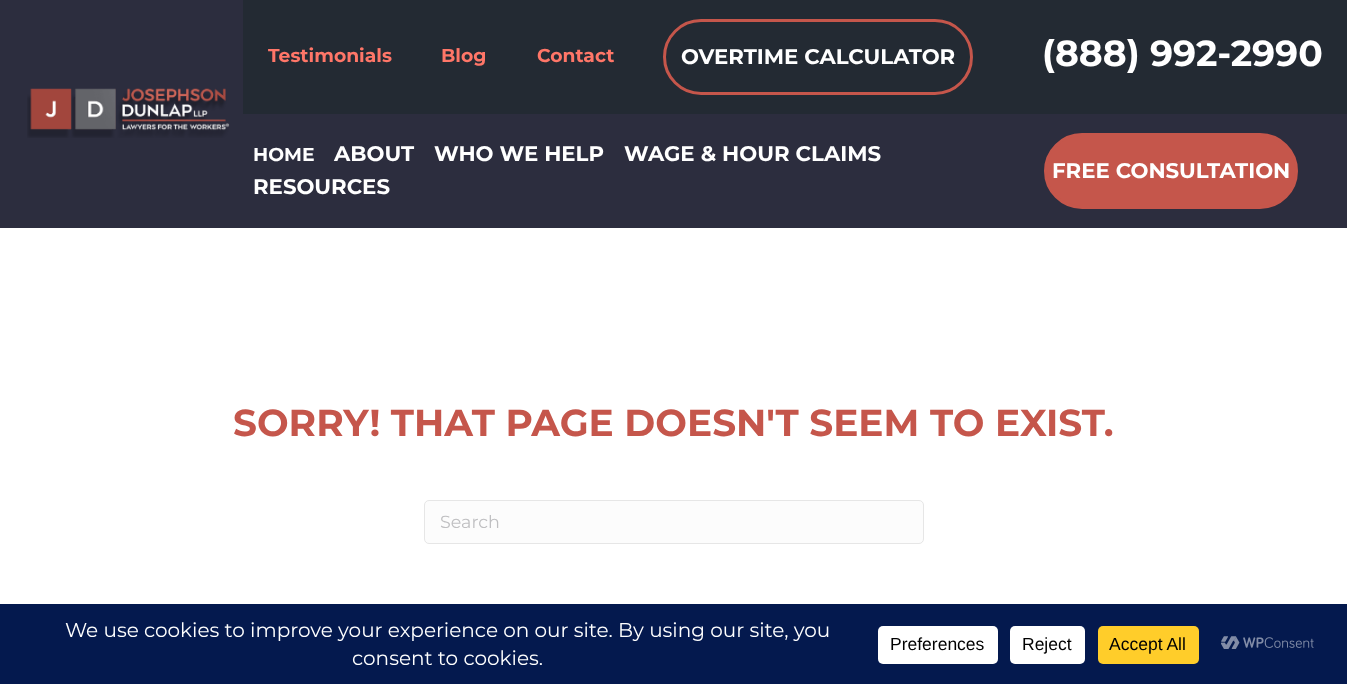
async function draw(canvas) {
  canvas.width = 1347
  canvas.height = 684
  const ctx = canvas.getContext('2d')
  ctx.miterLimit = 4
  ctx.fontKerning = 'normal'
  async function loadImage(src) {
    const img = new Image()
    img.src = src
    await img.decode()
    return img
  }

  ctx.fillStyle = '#fff'
  ctx.fillRect(0, 0, 1347, 684)
  ctx.fillStyle = '#2c2d3e'
  ctx.fillRect(0, 0, 1347, 228)
  ctx.drawImage(await loadImage('image0.png'), 27, 88, 203, 50)
  ctx.fillStyle = '#232a33'
  ctx.fillRect(243, 0, 1104, 114)
  ctx.font = 'bold 18.75px Montserrat'
  ctx.fillStyle = '#ff7668'
  ctx.fillText('Testimonials', 268, 62)
  ctx.fillText('Blog', 441, 62)
  ctx.fillText('Contact', 537, 62)
  ctx.beginPath()
  ctx.roundRect(664.5, 20.5, 307, 73, 36.5)
  ctx.strokeStyle = '#c5564b'
  ctx.lineWidth = 3
  ctx.stroke()
  ctx.font = 'bold 21.25px Montserrat'
  ctx.fillStyle = '#fff'
  ctx.fillText('OVERTIME CALCULATOR', 681, 64)
  ctx.font = 'bold 36.25px Montserrat'
  ctx.fillText('(888) 992-2990', 1042, 66)
  ctx.font = 'bold 18.75px Montserrat'
  ctx.fillText('HOME', 253, 161)
  ctx.font = 'bold 21.25px Montserrat'
  ctx.fillText('ABOUT', 334, 161)
  ctx.fillText('WHO WE HELP', 434, 161)
  ctx.fillText('WAGE & HOUR CLAIMS', 624, 161)
  ctx.fillText('RESOURCES', 253, 194)
  ctx.fillStyle = '#c5564b'
  ctx.beginPath()
  ctx.roundRect(1045.5, 134.5, 251, 73, 36.5)
  ctx.fill()
  ctx.stroke()
  ctx.fillStyle = '#fff'
  ctx.fillText('FREE CONSULTATION', 1052, 178)
  ctx.font = 'bold 37.5px Montserrat'
  ctx.fillStyle = '#c5564b'
  ctx.fillText('SORRY! THAT PAGE DOESN\'T SEEM TO EXIST.', 233, 436)
  ctx.fillStyle = '#fcfcfc'
  ctx.beginPath()
  ctx.roundRect(424.5, 500.5, 499, 43, 4.5)
  ctx.fill()
  ctx.strokeStyle = '#e6e6e6'
  ctx.lineWidth = 1
  ctx.stroke()
  ctx.font = '17.5px Montserrat'
  ctx.fillStyle = '#bfbfc1'
  ctx.fillText('Search', 440, 528)
  ctx.fillStyle = '#04194e'
  ctx.fillRect(0, 604, 1347, 80)
  ctx.font = '20px Montserrat'
  ctx.fillStyle = '#fff'
  ctx.fillText('We use cookies to improve your experience on our site. By using our site, you', 65, 637)
  ctx.fillText('consent to cookies.', 352, 665)
  ctx.beginPath()
  ctx.roundRect(878, 626, 120, 38, 5)
  ctx.fill()
  ctx.font = '17.5px Liberation Sans'
  ctx.fillStyle = '#000'
  ctx.fillText('Preferences', 890, 650)
  ctx.fillStyle = '#fff'
  ctx.beginPath()
  ctx.roundRect(1010, 626, 75, 38, 5)
  ctx.fill()
  ctx.fillStyle = '#000'
  ctx.fillText('Reject', 1022, 650)
  ctx.fillStyle = '#ffcd2a'
  ctx.beginPath()
  ctx.roundRect(1098, 626, 101, 38, 5)
  ctx.fill()
  ctx.fillStyle = '#000'
  ctx.fillText('Accept All', 1109, 650)
  ctx.drawImage(await loadImage('image1.png'), 1221, 636, 93, 13)
}

draw(document.querySelector('canvas'))
